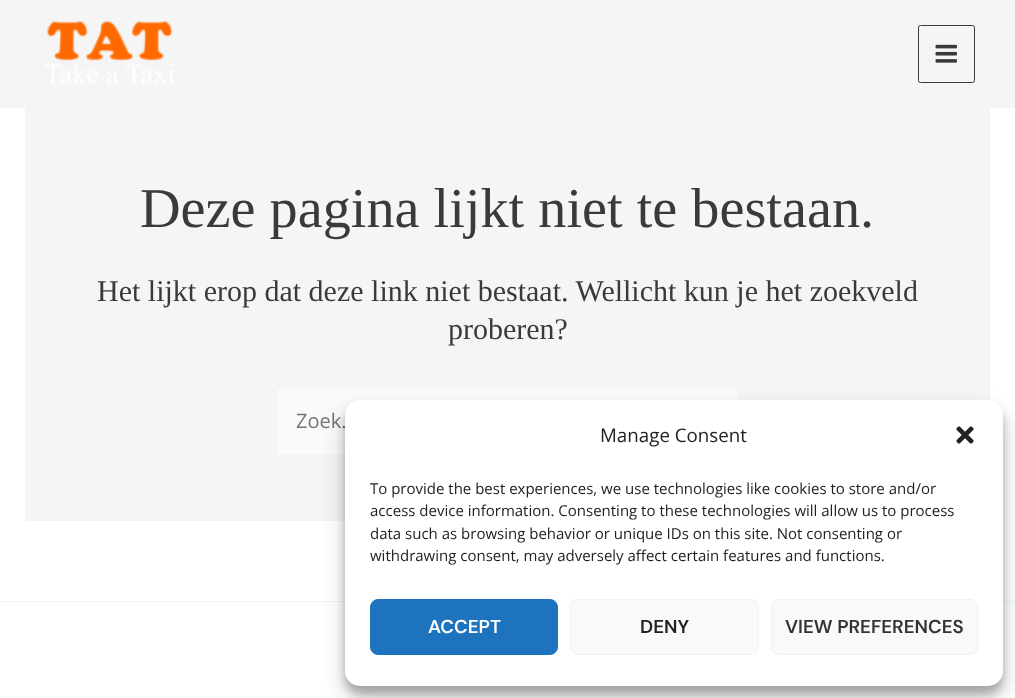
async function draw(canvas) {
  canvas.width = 1015
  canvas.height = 698
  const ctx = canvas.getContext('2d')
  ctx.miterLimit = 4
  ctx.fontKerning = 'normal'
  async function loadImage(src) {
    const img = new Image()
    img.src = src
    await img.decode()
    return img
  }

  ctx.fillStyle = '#fff'
  ctx.fillRect(0, 0, 1015, 698)
  ctx.fillStyle = '#f5f5f5'
  ctx.fillRect(0, 0, 1015, 108)
  ctx.drawImage(await loadImage('image0.png'), 45, 21, 128, 63)
  ctx.beginPath()
  ctx.roundRect(918.5, 25.5, 56, 57, 2)
  ctx.strokeStyle = '#3a3a3a'
  ctx.stroke()
  ctx.drawImage(await loadImage('image1.png'), 935, 44, 22, 19)
  ctx.fillRect(25, 108, 965, 413)
  ctx.font = '56.25px Liberation Serif'
  ctx.fillStyle = '#3a3a3a'
  ctx.fillText('Deze pagina lijkt niet te bestaan.', 140, 227)
  ctx.font = '30px Liberation Serif'
  ctx.fillText('Het lijkt erop dat deze link niet bestaat. Wellicht kun je het zoekveld', 97, 301)
  ctx.fillText('proberen?', 448, 339)
  ctx.fillStyle = '#fafafa'
  ctx.beginPath()
  ctx.roundRect(276.5, 388.5, 462, 66, 2)
  ctx.fill()
  ctx.strokeStyle = '#f2f5f7'
  ctx.stroke()
  ctx.font = '20px Open Sans'
  ctx.fillStyle = '#757575'
  ctx.fillText('Zoek.', 296, 428)
  ctx.fillStyle = '#f2f5f7'
  ctx.fillRect(0, 601, 1015, 1)
  ctx.fillStyle = '#0000003b'
  ctx.filter = 'blur(4px)'
  ctx.beginPath()
  ctx.roundRect(345, 408, 658, 286, 15)
  ctx.fill()
  ctx.filter = 'none'
  ctx.fillStyle = '#00000030'
  ctx.filter = 'blur(12.5px)'
  ctx.beginPath()
  ctx.roundRect(345, 413, 658, 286, 15)
  ctx.fill()
  ctx.filter = 'none'
  ctx.fillStyle = '#fff'
  ctx.beginPath()
  ctx.roundRect(345, 400, 658, 286, 15)
  ctx.fill()
  ctx.font = '18.75px Open Sans'
  ctx.fillStyle = '#222'
  ctx.fillText('Manage Consent', 600, 442)
  ctx.drawImage(await loadImage('image2.png'), 956, 426, 18, 18)
  ctx.font = '15px Open Sans'
  ctx.fillText('To provide the best experiences, we use technologies like cookies to store and/or', 370, 494)
  ctx.fillText('access device information. Consenting to these technologies will allow us to process', 370, 516)
  ctx.fillText('data such as browsing behavior or unique IDs on this site. Not consenting or', 370, 539)
  ctx.fillText('withdrawing consent, may adversely affect certain features and functions.', 370, 561)
  ctx.fillStyle = '#1e73be'
  ctx.beginPath()
  ctx.roundRect(370.5, 599.5, 187, 55, 7.5)
  ctx.fill()
  ctx.strokeStyle = '#1e73be'
  ctx.stroke()
  ctx.font = '600 18.75px DM Sans'
  ctx.fillStyle = '#fff'
  ctx.fillText('ACCEPT', 428, 633)
  ctx.fillStyle = '#f9f9f9'
  ctx.beginPath()
  ctx.roundRect(570.5, 599.5, 188, 55, 7.5)
  ctx.fill()
  ctx.strokeStyle = '#f2f2f2'
  ctx.stroke()
  ctx.fillStyle = '#222'
  ctx.fillText('DENY', 640, 633)
  ctx.fillStyle = '#f9f9f9'
  ctx.beginPath()
  ctx.roundRect(771.5, 599.5, 206, 55, 7.5)
  ctx.fill()
  ctx.stroke()
  ctx.fillStyle = '#333'
  ctx.fillText('VIEW PREFERENCES', 785, 633)
}

draw(document.querySelector('canvas'))
